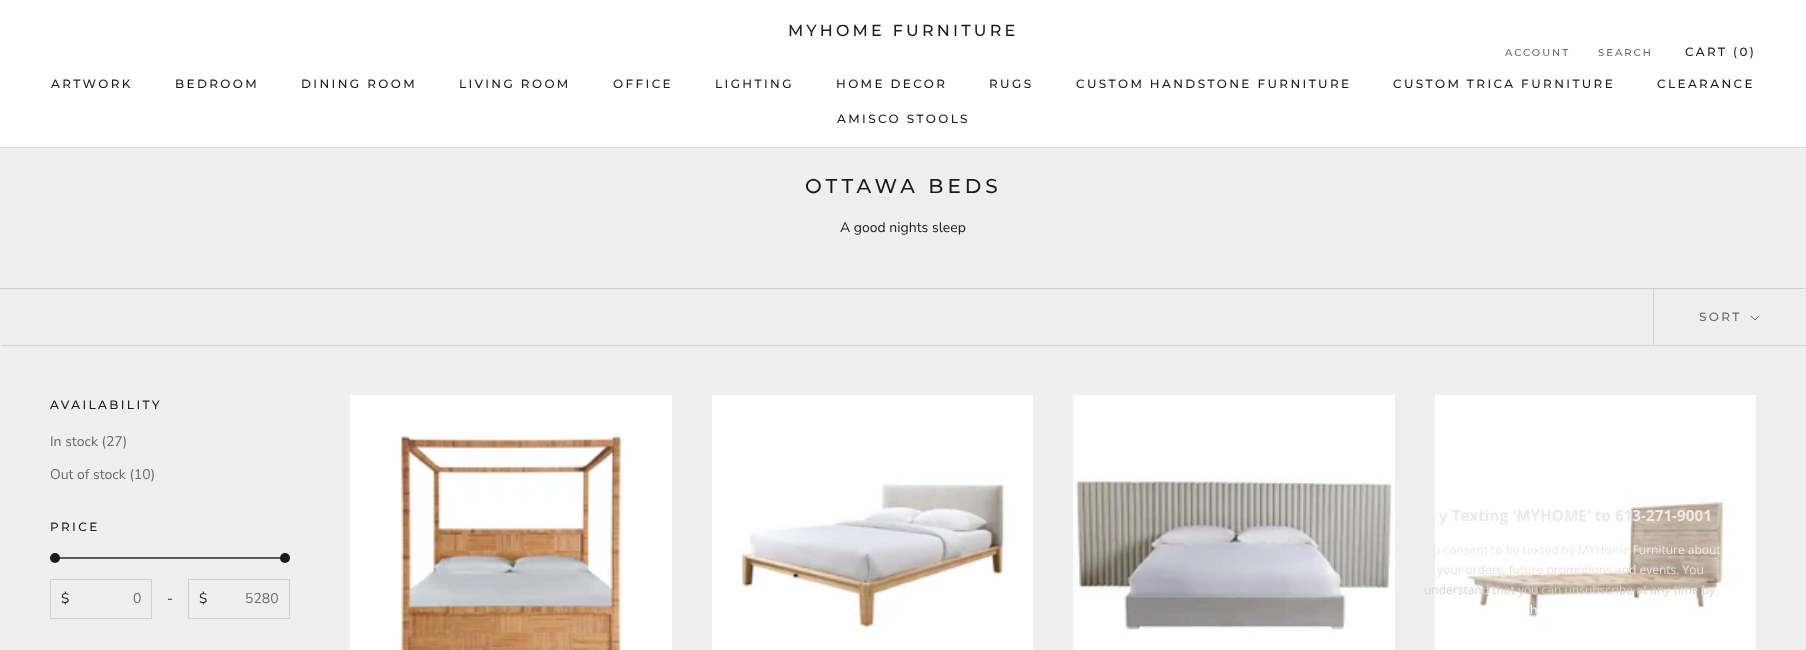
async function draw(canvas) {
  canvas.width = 1806
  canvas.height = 650
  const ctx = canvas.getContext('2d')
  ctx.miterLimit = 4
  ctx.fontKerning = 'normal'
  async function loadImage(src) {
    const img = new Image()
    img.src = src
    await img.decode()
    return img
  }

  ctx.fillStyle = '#efefef'
  ctx.fillRect(0, 0, 1806, 650)
  ctx.fillStyle = '#fff'
  ctx.fillRect(0, 0, 1806, 147)
  ctx.fillStyle = '#ddd'
  ctx.fillRect(0, 147, 1806, 1)
  ctx.letterSpacing = '3.25px'
  ctx.font = '500 16px Montserrat'
  ctx.fillStyle = '#1c1b1b'
  ctx.fillText('MYHOME FURNITURE', 788, 36)
  ctx.letterSpacing = '2px'
  ctx.font = '500 10px Montserrat'
  ctx.fillStyle = '#6a6a6a'
  ctx.fillText('ACCOUNT', 1505, 56)
  ctx.fillText('SEARCH', 1598, 56)
  ctx.letterSpacing = '2.4px'
  ctx.font = '500 12px Montserrat'
  ctx.fillStyle = '#1c1b1b'
  ctx.fillText('CART (0)', 1685, 56)
  ctx.fillText('ARTWORK', 51, 88)
  ctx.fillText('BEDROOM', 175, 88)
  ctx.fillText('DINING ROOM', 301, 88)
  ctx.fillText('LIVING ROOM', 459, 88)
  ctx.fillText('OFFICE', 613, 88)
  ctx.fillText('LIGHTING', 715, 88)
  ctx.fillText('HOME DECOR', 836, 88)
  ctx.fillText('RUGS', 989, 88)
  ctx.fillText('CUSTOM HANDSTONE FURNITURE', 1076, 88)
  ctx.fillText('CUSTOM TRICA FURNITURE', 1393, 88)
  ctx.fillText('CLEARANCE', 1657, 88)
  ctx.fillText('AMISCO STOOLS', 837, 123)
  ctx.letterSpacing = '4px'
  ctx.font = '500 20px Montserrat'
  ctx.fillText('OTTAWA BEDS', 805, 193)
  ctx.letterSpacing = '0px'
  ctx.font = '14px Nunito Sans'
  ctx.fillText('A good nights sleep', 840, 232)
  ctx.fillStyle = '#cfcfcf'
  ctx.beginPath()
  ctx.moveTo(-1, 288)
  ctx.lineTo(-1, 344)
  ctx.lineTo(0, 344)
  ctx.lineTo(0, 289)
  ctx.lineTo(1805, 289)
  ctx.lineTo(1805, 288)
  ctx.closePath()
  ctx.fill()
  ctx.beginPath()
  ctx.moveTo(1, 345)
  ctx.lineTo(1, 346)
  ctx.lineTo(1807, 346)
  ctx.lineTo(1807, 290)
  ctx.lineTo(1806, 290)
  ctx.lineTo(1806, 345)
  ctx.closePath()
  ctx.fill()
  ctx.fillRect(1653, 289, 1, 56)
  ctx.letterSpacing = '2.4px'
  ctx.font = '500 12px Montserrat'
  ctx.fillStyle = '#6a6a6a'
  ctx.fillText('SORT', 1699, 321)
  ctx.beginPath()
  ctx.moveTo(1759, 316)
  ctx.lineTo(1755, 320)
  ctx.lineTo(1751, 316)
  ctx.strokeStyle = '#6a6a6a'
  ctx.lineCap = 'square'
  ctx.stroke()
  ctx.fillStyle = '#1c1b1b'
  ctx.fillText('AVAILABILITY', 50, 409)
  ctx.letterSpacing = '0px'
  ctx.font = '14px Nunito Sans'
  ctx.fillStyle = '#6a6a6a'
  ctx.fillText('In stock (27)', 50, 446)
  ctx.fillText('Out of stock (10)', 50, 479)
  ctx.letterSpacing = '2.4px'
  ctx.font = '500 12px Montserrat'
  ctx.fillStyle = '#1c1b1b'
  ctx.fillText('PRICE', 50, 531)
  ctx.fillStyle = '#5b5b5b'
  ctx.beginPath()
  ctx.roundRect(50, 557, 240, 2, 1)
  ctx.fill()
  ctx.fillStyle = '#1c1b1b'
  ctx.beginPath()
  ctx.arc(55, 558, 5, 0, 2 * Math.PI)
  ctx.fill()
  ctx.beginPath()
  ctx.arc(285, 558, 5, 0, 2 * Math.PI)
  ctx.fill()
  ctx.strokeStyle = '#cfcfcf'
  ctx.strokeRect(50.5, 579.5, 101, 39)
  ctx.letterSpacing = '0px'
  ctx.font = '14px Nunito Sans'
  ctx.fillText('$', 61, 603)
  ctx.fillStyle = '#6a6a6a'
  ctx.fillText('0', 133, 603)
  ctx.fillStyle = '#1c1b1b'
  ctx.fillText('-', 167, 603)
  ctx.strokeRect(188.5, 579.5, 101, 39)
  ctx.fillText('$', 199, 603)
  ctx.fillStyle = '#6a6a6a'
  ctx.fillText('5280', 245, 603)
  ctx.drawImage(await loadImage('image0.png'), 350, 395, 322, 255)
  ctx.drawImage(await loadImage('image1.png'), 712, 395, 321, 255)
  ctx.drawImage(await loadImage('image2.png'), 1073, 395, 322, 255)
  ctx.drawImage(await loadImage('image3.png'), 1435, 395, 321, 255)
  ctx.font = 'bold 15.25px Open Sans'
  ctx.fillStyle = '#ede9e4'
  ctx.fillText('y Texting \'MYHOME\' to 613-271-9001', 1439, 521)
  ctx.font = '12px Open Sans'
  ctx.fillText('u consent to be texted by MYHome Furniture about', 1433, 554)
  ctx.fillStyle = '#e8e3de'
  ctx.fillText('your orders, future promotions and events. You', 1437, 574)
  ctx.fillStyle = '#dad2ca'
  ctx.fillText('understand that you can unsubscribe at any time by', 1424, 594)
  ctx.fillStyle = '#fcfcfb'
  ctx.fillText('h', 1530, 614)
}

draw(document.querySelector('canvas'))
